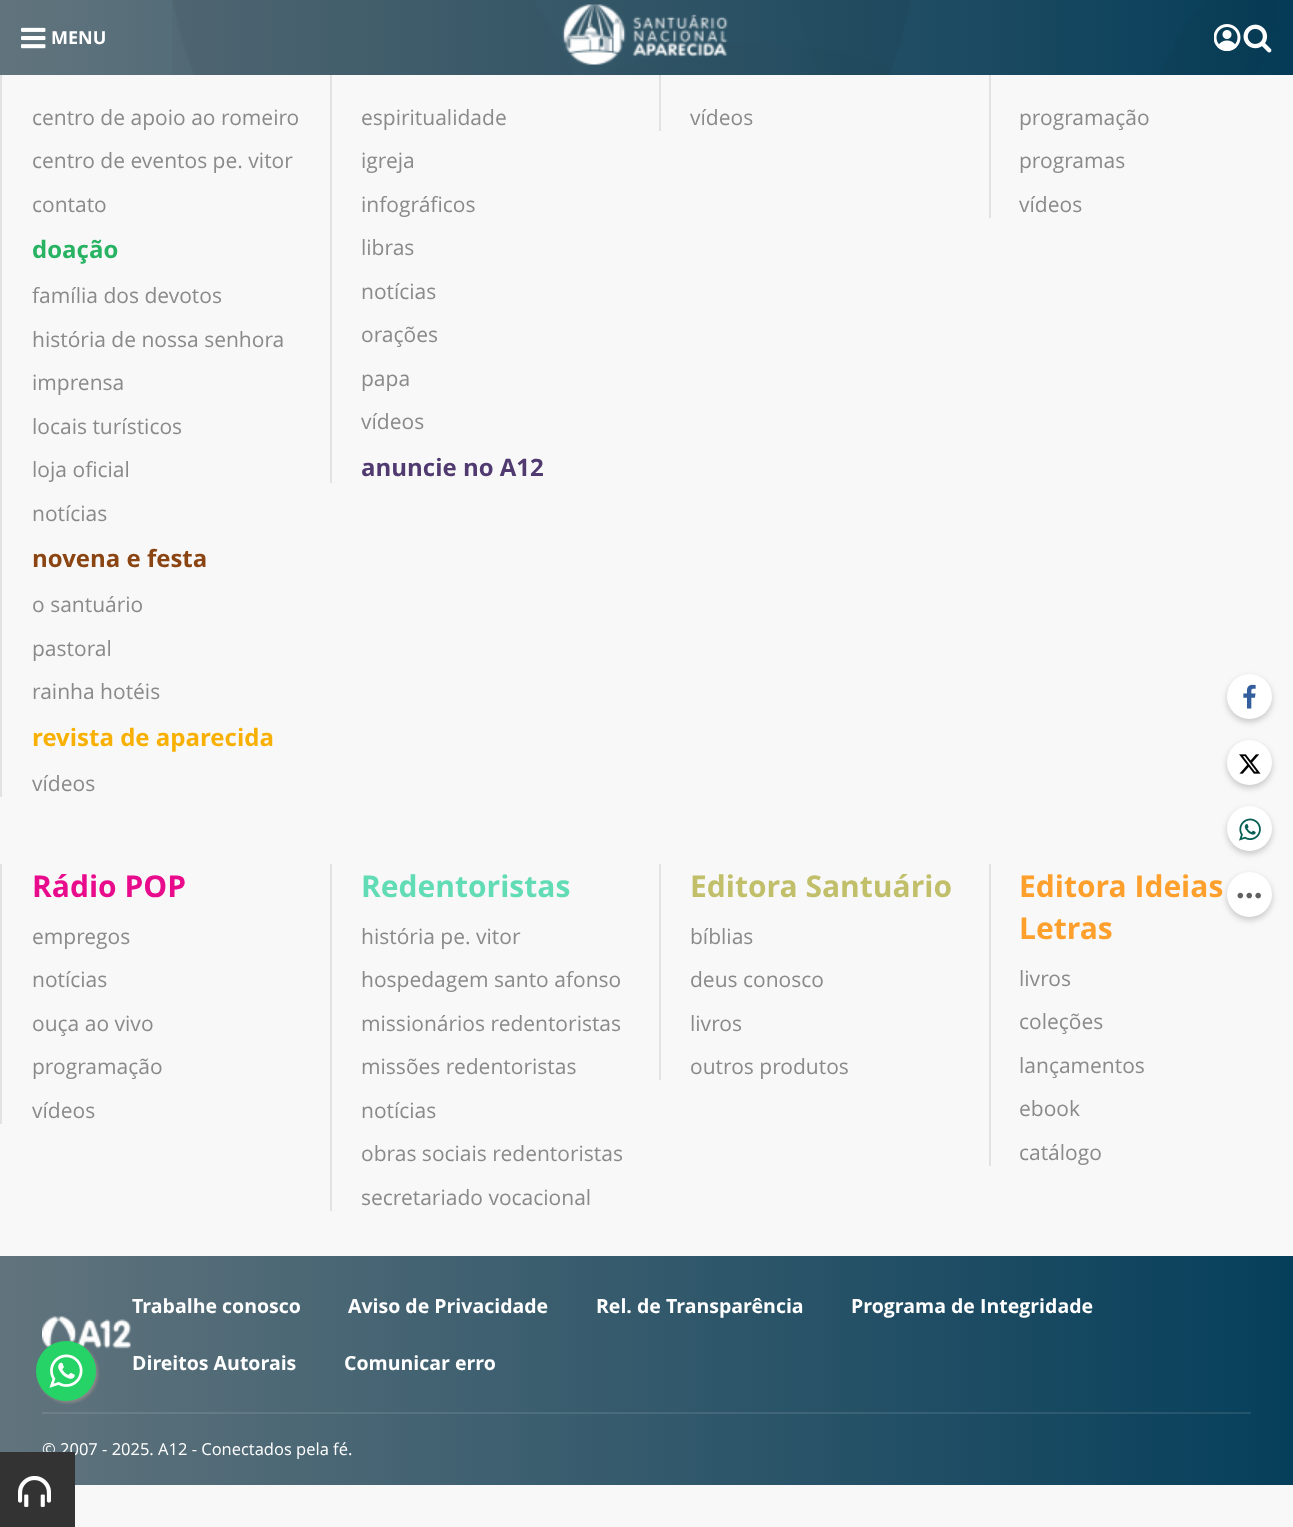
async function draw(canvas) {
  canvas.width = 1293
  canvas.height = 1527
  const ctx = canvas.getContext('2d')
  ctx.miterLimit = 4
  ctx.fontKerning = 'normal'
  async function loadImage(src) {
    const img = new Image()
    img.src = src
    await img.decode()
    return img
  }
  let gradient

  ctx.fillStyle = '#f8f8f8'
  ctx.fillRect(0, 0, 1293, 1527)
  gradient = ctx.createLinearGradient(0, 38, 1293, 37)
  gradient.addColorStop(0, '#61747d')
  gradient.addColorStop(1, '#063f5b')
  ctx.fillStyle = gradient
  ctx.fillRect(0, 0, 1293, 75)
  ctx.drawImage(await loadImage('image0.png'), 172, 0, 1121, 75)
  ctx.drawImage(await loadImage('image1.png'), 21, 27, 25, 22)
  ctx.font = 'bold 18px Open Sans'
  ctx.fillStyle = '#fff'
  ctx.fillText('MENU', 51, 44)
  ctx.drawImage(await loadImage('image2.png'), 562, 4, 166, 61)
  ctx.drawImage(await loadImage('image3.png'), 1214, 24, 27, 27)
  ctx.drawImage(await loadImage('image4.png'), 1243, 24, 29, 29)
  ctx.fillStyle = '#e2e2e2'
  ctx.fillRect(0, 75, 2, 722)
  ctx.font = '21px Open Sans'
  ctx.fillStyle = '#8a8a8a'
  ctx.fillText('centro de apoio ao romeiro', 32, 125)
  ctx.fillText('centro de eventos pe. vitor', 32, 168)
  ctx.fillText('contato', 32, 212)
  ctx.font = 'bold 24px Open Sans'
  ctx.fillStyle = '#28b363'
  ctx.fillText('doação', 32, 258)
  ctx.font = '21px Open Sans'
  ctx.fillStyle = '#8a8a8a'
  ctx.fillText('família dos devotos', 32, 303)
  ctx.fillText('história de nossa senhora', 32, 347)
  ctx.fillText('imprensa', 32, 390)
  ctx.fillText('locais turísticos', 32, 434)
  ctx.fillText('loja oficial', 32, 477)
  ctx.fillText('notícias', 32, 521)
  ctx.font = 'bold 24px Open Sans'
  ctx.fillStyle = '#8b4513'
  ctx.fillText('novena e festa', 32, 567)
  ctx.font = '21px Open Sans'
  ctx.fillStyle = '#8a8a8a'
  ctx.fillText('o santuário', 32, 612)
  ctx.fillText('pastoral', 32, 656)
  ctx.fillText('rainha hotéis', 32, 699)
  ctx.font = 'bold 24px Open Sans'
  ctx.fillStyle = '#f8b003'
  ctx.fillText('revista de aparecida', 32, 746)
  ctx.font = '21px Open Sans'
  ctx.fillStyle = '#8a8a8a'
  ctx.fillText('vídeos', 32, 791)
  ctx.fillStyle = '#e2e2e2'
  ctx.fillRect(330, 75, 2, 408)
  ctx.fillStyle = '#8a8a8a'
  ctx.fillText('espiritualidade', 361, 125)
  ctx.fillText('igreja', 361, 168)
  ctx.fillText('infográficos', 361, 212)
  ctx.fillText('libras', 361, 255)
  ctx.fillText('notícias', 361, 299)
  ctx.fillText('orações', 361, 342)
  ctx.fillText('papa', 361, 386)
  ctx.fillText('vídeos', 361, 429)
  ctx.font = 'bold 24px Open Sans'
  ctx.fillStyle = '#503a70'
  ctx.fillText('anuncie no A12', 361, 476)
  ctx.fillStyle = '#e2e2e2'
  ctx.fillRect(659, 75, 2, 56)
  ctx.font = '21px Open Sans'
  ctx.fillStyle = '#8a8a8a'
  ctx.fillText('vídeos', 690, 125)
  ctx.fillStyle = '#e2e2e2'
  ctx.fillRect(989, 75, 2, 143)
  ctx.fillStyle = '#8a8a8a'
  ctx.fillText('programação', 1019, 125)
  ctx.fillText('programas', 1019, 168)
  ctx.fillText('vídeos', 1019, 212)
  ctx.fillStyle = '#e2e2e2'
  ctx.fillRect(0, 864, 2, 260)
  ctx.font = 'bold 30px Open Sans'
  ctx.fillStyle = '#e80b8c'
  ctx.fillText('Rádio POP', 32, 897)
  ctx.font = '21px Open Sans'
  ctx.fillStyle = '#8a8a8a'
  ctx.fillText('empregos', 32, 944)
  ctx.fillText('notícias', 32, 987)
  ctx.fillText('ouça ao vivo', 32, 1031)
  ctx.fillText('programação', 32, 1074)
  ctx.fillText('vídeos', 32, 1118)
  ctx.fillStyle = '#e2e2e2'
  ctx.fillRect(330, 864, 2, 347)
  ctx.font = 'bold 30px Open Sans'
  ctx.fillStyle = '#62dcb5'
  ctx.fillText('Redentoristas', 361, 897)
  ctx.font = '21px Open Sans'
  ctx.fillStyle = '#8a8a8a'
  ctx.fillText('história pe. vitor', 361, 944)
  ctx.fillText('hospedagem santo afonso', 361, 987)
  ctx.fillText('missionários redentoristas', 361, 1031)
  ctx.fillText('missões redentoristas', 361, 1074)
  ctx.fillText('notícias', 361, 1118)
  ctx.fillText('obras sociais redentoristas', 361, 1161)
  ctx.fillText('secretariado vocacional', 361, 1205)
  ctx.fillStyle = '#e2e2e2'
  ctx.fillRect(659, 864, 2, 216)
  ctx.font = 'bold 30px Open Sans'
  ctx.fillStyle = '#c1bf69'
  ctx.fillText('Editora Santuário', 690, 897)
  ctx.font = '21px Open Sans'
  ctx.fillStyle = '#8a8a8a'
  ctx.fillText('bíblias', 690, 944)
  ctx.fillText('deus conosco', 690, 987)
  ctx.fillText('livros', 690, 1031)
  ctx.fillText('outros produtos', 690, 1074)
  ctx.fillStyle = '#e2e2e2'
  ctx.fillRect(989, 864, 2, 302)
  ctx.font = 'bold 30px Open Sans'
  ctx.fillStyle = '#ffa02c'
  ctx.fillText('Editora Ideias', 1019, 897)
  ctx.fillText('Letras', 1019, 939)
  ctx.font = '21px Open Sans'
  ctx.fillStyle = '#8a8a8a'
  ctx.fillText('livros', 1019, 986)
  ctx.fillText('coleções', 1019, 1029)
  ctx.fillText('lançamentos', 1019, 1073)
  ctx.fillText('ebook', 1019, 1116)
  ctx.fillText('catálogo', 1019, 1160)
  gradient = ctx.createLinearGradient(0, 1370, 1293, 1370)
  gradient.addColorStop(0, '#61747d')
  gradient.addColorStop(1, '#063f5b')
  ctx.fillStyle = gradient
  ctx.fillRect(0, 1256, 1293, 229)
  gradient = ctx.createLinearGradient(0, 1370, 1293, 1370)
  gradient.addColorStop(0, '#71828a')
  gradient.addColorStop(1, '#1f526b')
  ctx.fillStyle = gradient
  ctx.fillRect(42, 1412, 1209, 2)
  ctx.drawImage(await loadImage('image5.png'), 42, 1316, 89, 33)
  ctx.font = 'bold 19.5px Open Sans'
  ctx.fillStyle = '#fff'
  ctx.fillText('Trabalhe conosco', 132, 1313)
  ctx.fillText('Aviso de Privacidade', 348, 1313)
  ctx.fillText('Rel. de Transparência', 596, 1313)
  ctx.fillText('Programa de Integridade', 851, 1313)
  ctx.fillText('Direitos Autorais', 132, 1370)
  ctx.fillText('Comunicar erro', 344, 1370)
  ctx.font = '16.5px Open Sans'
  ctx.fillText('© 2007 - 2025. A12 - Conectados pela fé.', 42, 1455)
  ctx.fillStyle = '#00000033'
  ctx.filter = 'blur(3px)'
  ctx.beginPath()
  ctx.roundRect(1227, 677, 45, 45, 22.5)
  ctx.fill()
  ctx.filter = 'none'
  ctx.fillStyle = '#fff'
  ctx.beginPath()
  ctx.arc(1249.5, 696.5, 22.5, 0, 2 * Math.PI)
  ctx.fill()
  ctx.drawImage(await loadImage('image6.png'), 1243, 684, 13, 25)
  ctx.fillStyle = '#00000033'
  ctx.filter = 'blur(3px)'
  ctx.beginPath()
  ctx.roundRect(1227, 743, 45, 45, 22.5)
  ctx.fill()
  ctx.filter = 'none'
  ctx.fillStyle = '#fff'
  ctx.beginPath()
  ctx.arc(1249.5, 762.5, 22.5, 0, 2 * Math.PI)
  ctx.fill()
  ctx.drawImage(await loadImage('image7.png'), 1239, 754, 22, 20)
  ctx.fillStyle = '#00000033'
  ctx.filter = 'blur(3px)'
  ctx.beginPath()
  ctx.roundRect(1227, 809, 45, 45, 22.5)
  ctx.fill()
  ctx.filter = 'none'
  ctx.fillStyle = '#fff'
  ctx.beginPath()
  ctx.arc(1249.5, 828.5, 22.5, 0, 2 * Math.PI)
  ctx.fill()
  ctx.drawImage(await loadImage('image8.png'), 1239, 818, 22, 23)
  ctx.fillStyle = '#00000033'
  ctx.filter = 'blur(3px)'
  ctx.beginPath()
  ctx.roundRect(1227, 875, 45, 45, 22.5)
  ctx.fill()
  ctx.filter = 'none'
  ctx.fillStyle = '#fff'
  ctx.beginPath()
  ctx.arc(1249.5, 894.5, 22.5, 0, 2 * Math.PI)
  ctx.fill()
  ctx.drawImage(await loadImage('image9.png'), 1237, 892, 24, 7)
  ctx.fillStyle = '#888'
  ctx.filter = 'blur(1.5px)'
  ctx.beginPath()
  ctx.roundRect(38, 1343, 60, 60, 30)
  ctx.fill()
  ctx.filter = 'none'
  ctx.fillStyle = '#25d366'
  ctx.beginPath()
  ctx.arc(66, 1371, 30, 0, 2 * Math.PI)
  ctx.fill()
  ctx.drawImage(await loadImage('image10.png'), 49, 1354, 34, 34)
  ctx.fillStyle = '#333'
  ctx.fillRect(0, 1452, 75, 75)
  ctx.drawImage(await loadImage('image11.png'), 18, 1476, 33, 31)
}

draw(document.querySelector('canvas'))
